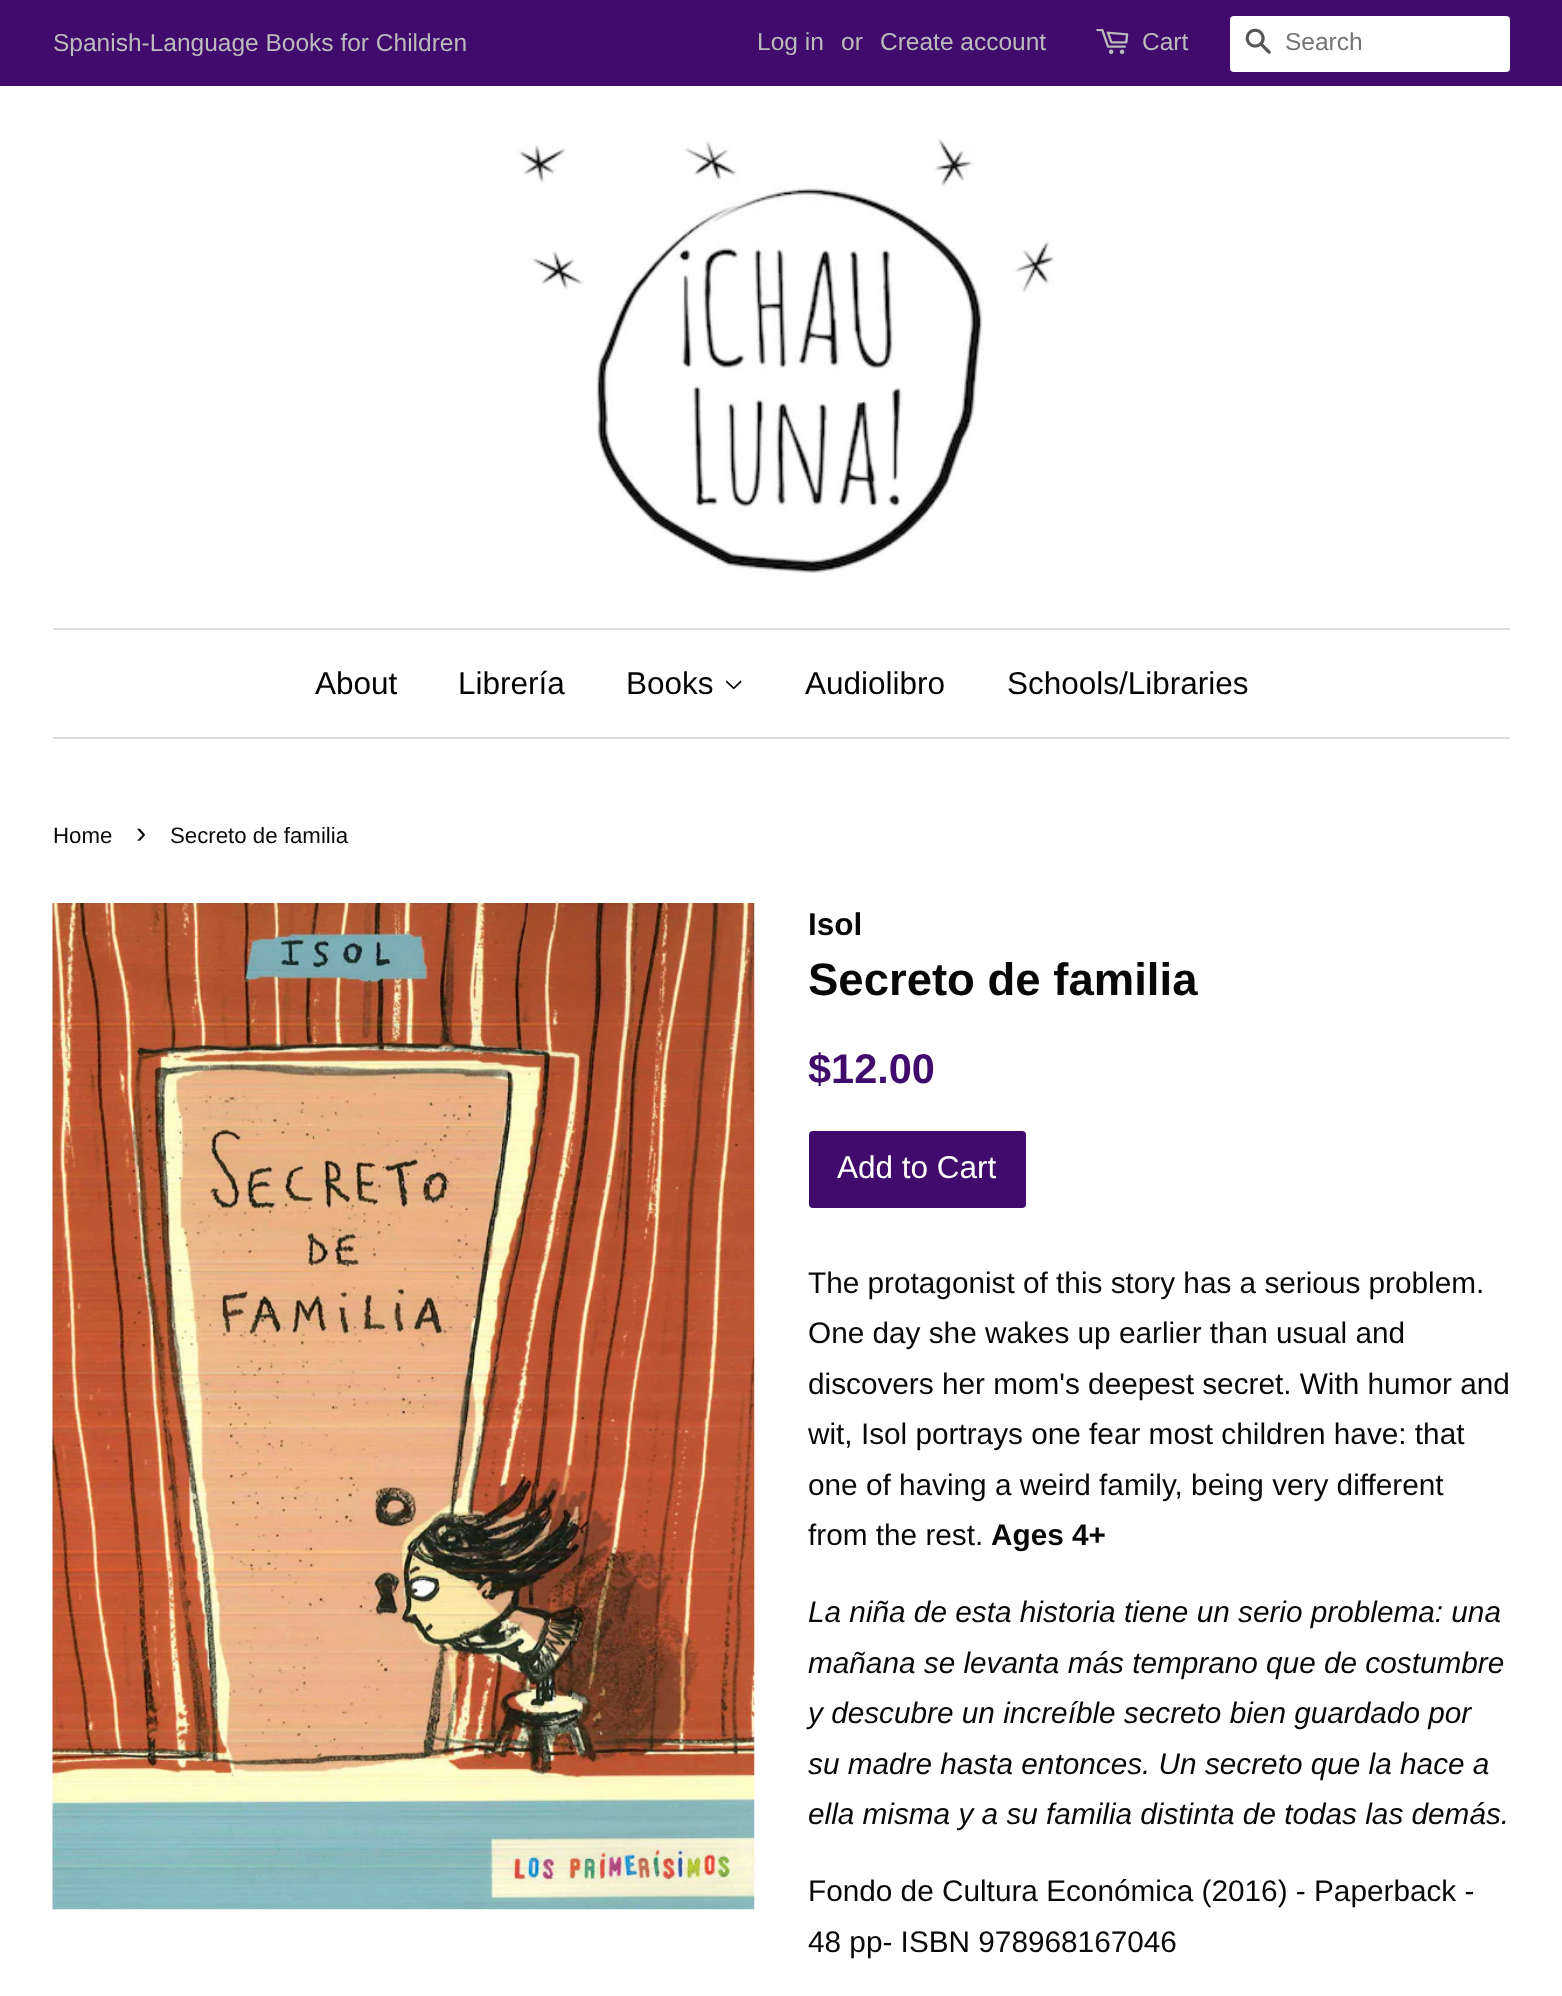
async function draw(canvas) {
  canvas.width = 1562
  canvas.height = 1996
  const ctx = canvas.getContext('2d')
  ctx.miterLimit = 4
  ctx.fontKerning = 'normal'
  async function loadImage(src) {
    const img = new Image()
    img.src = src
    await img.decode()
    return img
  }

  ctx.fillStyle = '#fff'
  ctx.fillRect(0, 0, 1562, 1996)
  ctx.fillStyle = '#400b6c'
  ctx.fillRect(0, 0, 1562, 86)
  ctx.font = '24.5px Liberation Sans'
  ctx.fillStyle = '#bbb'
  ctx.fillText('Spanish-Language Books for Children', 53, 51)
  ctx.fillText('Log in', 757, 50)
  ctx.fillText('or', 841, 50)
  ctx.fillText('Create account', 880, 50)
  ctx.drawImage(await loadImage('image0.png'), 1096, 29, 33, 26)
  ctx.fillText('Cart', 1142, 50)
  ctx.fillStyle = '#fff'
  ctx.beginPath()
  ctx.roundRect(1230, 16, 280, 56, 4)
  ctx.fill()
  ctx.drawImage(await loadImage('image1.png'), 1245, 28, 26, 26)
  ctx.fillStyle = '#757575'
  ctx.fillText('Search', 1285, 50)
  ctx.drawImage(await loadImage('image2.png'), 515, 138, 539, 435)
  ctx.fillStyle = '#ddd'
  ctx.fillRect(53, 628, 1457, 2)
  ctx.fillRect(53, 737, 1457, 2)
  ctx.font = '31.5px Liberation Sans'
  ctx.fillStyle = '#030303'
  ctx.fillText('About', 315, 694)
  ctx.fillText('Librería', 458, 694)
  ctx.fillText('Books', 626, 694)
  ctx.drawImage(await loadImage('image3.png'), 725, 680, 17, 10)
  ctx.fillText('Audiolibro', 805, 694)
  ctx.fillText('Schools/Libraries', 1007, 694)
  ctx.font = '22.25px Liberation Sans'
  ctx.fillStyle = '#090808'
  ctx.fillText('Home', 53, 843)
  ctx.font = '31px Liberation Sans'
  ctx.fillText('›', 136, 843)
  ctx.font = '22.25px Liberation Sans'
  ctx.fillText('Secreto de familia', 170, 843)
  ctx.drawImage(await loadImage('image4.png'), 52, 903, 703, 1007)
  ctx.font = 'bold 31.5px Liberation Sans'
  ctx.fillText('Isol', 808, 935)
  ctx.font = 'bold 45.5px Liberation Sans'
  ctx.fillText('Secreto de familia', 808, 995)
  ctx.font = 'bold 41.5px Liberation Sans'
  ctx.fillStyle = '#400b6c'
  ctx.fillText('$12.00', 808, 1083)
  ctx.beginPath()
  ctx.roundRect(809, 1131, 217, 77, 4)
  ctx.fill()
  ctx.font = '31.5px Liberation Sans'
  ctx.fillStyle = '#fff'
  ctx.fillText('Add to Cart', 837, 1178)
  ctx.font = '29.75px Liberation Sans'
  ctx.fillStyle = '#090808'
  ctx.fillText('The protagonist of this story has a serious problem.', 808, 1293)
  ctx.fillText('One day she wakes up earlier than usual and', 808, 1343)
  ctx.fillText('discovers her mom\'s deepest secret. With humor and', 808, 1394)
  ctx.fillText('wit, Isol portrays one fear most children have: that', 808, 1444)
  ctx.fillText('one of having a weird family, being very different', 808, 1495)
  ctx.fillText('from the rest.', 808, 1545)
  ctx.font = 'bold 29.75px Liberation Sans'
  ctx.fillText('Ages 4+', 991, 1545)
  ctx.font = 'italic 29.75px Liberation Sans'
  ctx.fillText('La niña de esta historia tiene un serio problema: una', 808, 1622)
  ctx.fillText('mañana se levanta más temprano que de costumbre', 808, 1673)
  ctx.fillText('y descubre un increíble secreto bien guardado por', 808, 1723)
  ctx.fillText('su madre hasta entonces. Un secreto que la hace a', 808, 1774)
  ctx.fillText('ella misma y a su familia distinta de todas las demás.', 808, 1824)
  ctx.font = '29.75px Liberation Sans'
  ctx.fillText('Fondo de Cultura Económica (2016) - Paperback -', 808, 1901)
  ctx.fillText('48 pp- ISBN 978968167046', 808, 1952)
}

draw(document.querySelector('canvas'))
